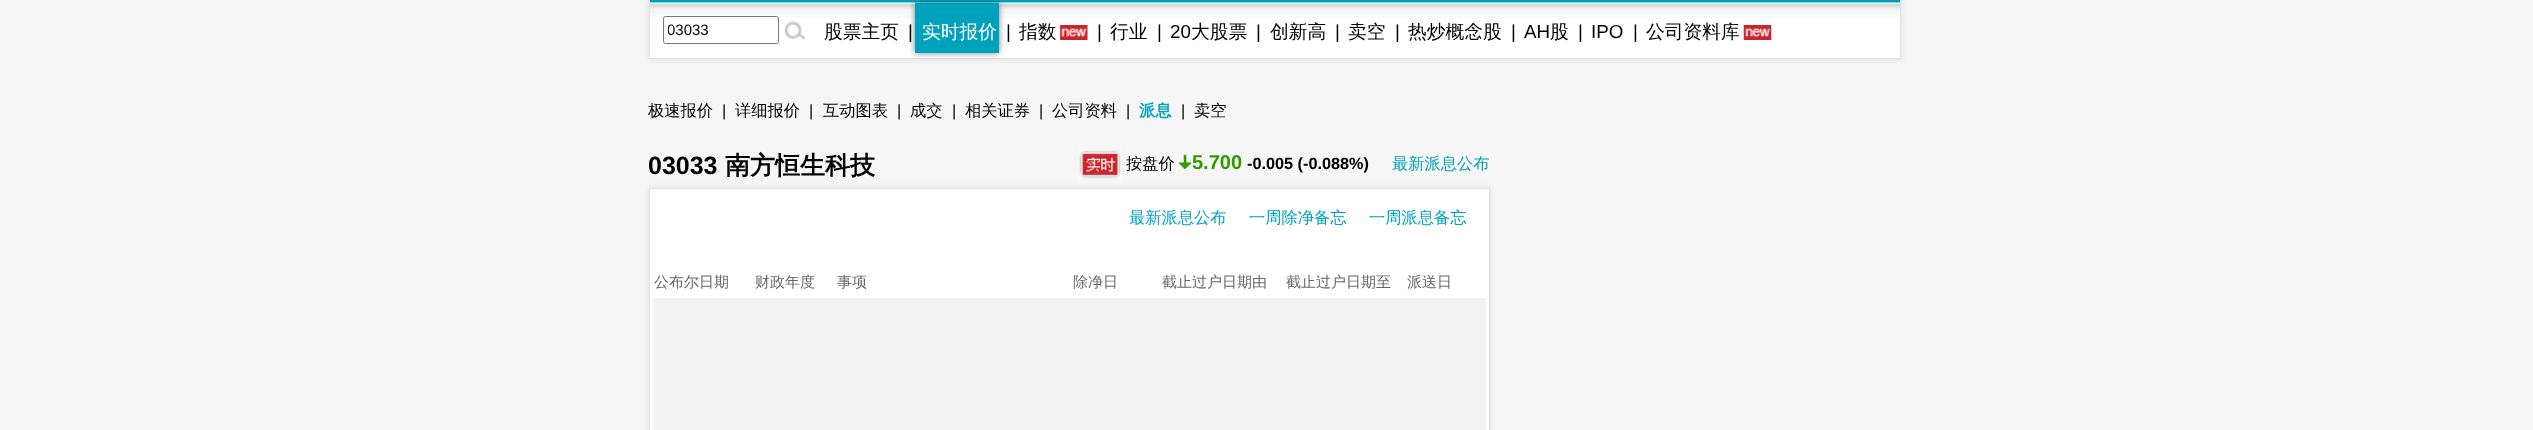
async function draw(canvas) {
  canvas.width = 2533
  canvas.height = 430
  const ctx = canvas.getContext('2d')
  ctx.miterLimit = 4
  ctx.fontKerning = 'normal'
  async function loadImage(src) {
    const img = new Image()
    img.src = src
    await img.decode()
    return img
  }

  ctx.fillStyle = '#f6f6f6'
  ctx.fillRect(0, 0, 2533, 430)
  ctx.fillStyle = '#0000001a'
  ctx.filter = 'blur(3px)'
  ctx.beginPath()
  ctx.rect(649, 0, 1252, 59)
  ctx.fill()
  ctx.filter = 'none'
  ctx.fillStyle = '#fff'
  ctx.fillRect(650, 18, 1250, 40)
  ctx.fillStyle = '#e2e2e2'
  ctx.fillRect(1900, 0, 1, 59)
  ctx.fillRect(649, 58, 1252, 1)
  ctx.fillRect(649, 0, 1, 59)
  ctx.fillStyle = '#00a1bd'
  ctx.fillRect(650, 0, 1250, 3)
  ctx.drawImage(await loadImage('image0.png'), 650, 2, 1250, 16)
  ctx.fillStyle = '#fff'
  ctx.beginPath()
  ctx.roundRect(663.5, 16.5, 115, 27, 2)
  ctx.fill()
  ctx.strokeStyle = '#767676'
  ctx.stroke()
  ctx.save()
  ctx.beginPath()
  ctx.rect(668, 20, 106, 20)
  ctx.clip()
  ctx.font = '15px Liberation Sans'
  ctx.fillStyle = '#000'
  ctx.fillText('03033', 667, 35)
  ctx.restore()
  ctx.drawImage(await loadImage('image1.png'), 785, 21, 20, 19)
  ctx.font = '500 18.75px WenQuanYi Zen Hei'
  ctx.fillStyle = '#000'
  ctx.fillText('股票主页', 824, 38)
  ctx.font = '18.75px Liberation Sans'
  ctx.fillText('|', 908, 38)
  ctx.fillStyle = '#00000080'
  ctx.filter = 'blur(3px)'
  ctx.beginPath()
  ctx.rect(915, 3, 84, 50)
  ctx.fill()
  ctx.filter = 'none'
  ctx.fillStyle = '#00a1bd'
  ctx.fillRect(915, 3, 84, 50)
  ctx.font = '500 18.75px WenQuanYi Zen Hei'
  ctx.fillStyle = '#fff'
  ctx.fillText('实时报价', 922, 38)
  ctx.font = '18.75px Liberation Sans'
  ctx.fillStyle = '#000'
  ctx.fillText('|', 1006, 38)
  ctx.font = '500 18.75px WenQuanYi Zen Hei'
  ctx.fillText('指数', 1019, 38)
  ctx.drawImage(await loadImage('image2.png'), 1059, 25, 29, 15)
  ctx.font = '18.75px Liberation Sans'
  ctx.fillText('|', 1097, 38)
  ctx.font = '500 18.75px WenQuanYi Zen Hei'
  ctx.fillText('行业', 1110, 38)
  ctx.font = '18.75px Liberation Sans'
  ctx.fillText('|', 1157, 38)
  ctx.fillText('20', 1170, 38)
  ctx.font = '500 18.75px WenQuanYi Zen Hei'
  ctx.fillText('大股票', 1191, 38)
  ctx.font = '18.75px Liberation Sans'
  ctx.fillText('|', 1256, 38)
  ctx.font = '500 18.75px WenQuanYi Zen Hei'
  ctx.fillText('创新高', 1270, 38)
  ctx.font = '18.75px Liberation Sans'
  ctx.fillText('|', 1335, 38)
  ctx.font = '500 18.75px WenQuanYi Zen Hei'
  ctx.fillText('卖空', 1348, 38)
  ctx.font = '18.75px Liberation Sans'
  ctx.fillText('|', 1395, 38)
  ctx.font = '500 18.75px WenQuanYi Zen Hei'
  ctx.fillText('热炒概念股', 1408, 38)
  ctx.font = '18.75px Liberation Sans'
  ctx.fillText('|', 1511, 38)
  ctx.fillText('AH', 1524, 38)
  ctx.font = '500 18.75px WenQuanYi Zen Hei'
  ctx.fillText('股', 1550, 38)
  ctx.font = '18.75px Liberation Sans'
  ctx.fillText('|', 1578, 38)
  ctx.fillText('IPO', 1591, 38)
  ctx.fillText('|', 1633, 38)
  ctx.font = '500 18.75px WenQuanYi Zen Hei'
  ctx.fillText('公司资料库', 1646, 38)
  ctx.drawImage(await loadImage('image3.png'), 1743, 25, 29, 15)
  ctx.font = '500 16.25px WenQuanYi Zen Hei'
  ctx.fillText('极速报价', 648, 116)
  ctx.font = '16.25px Liberation Sans'
  ctx.fillText('|', 722, 116)
  ctx.font = '500 16.25px WenQuanYi Zen Hei'
  ctx.fillText('详细报价', 735, 116)
  ctx.font = '16.25px Liberation Sans'
  ctx.fillText('|', 809, 116)
  ctx.font = '500 16.25px WenQuanYi Zen Hei'
  ctx.fillText('互动图表', 823, 116)
  ctx.font = '16.25px Liberation Sans'
  ctx.fillText('|', 897, 116)
  ctx.font = '500 16.25px WenQuanYi Zen Hei'
  ctx.fillText('成交', 910, 116)
  ctx.font = '16.25px Liberation Sans'
  ctx.fillText('|', 952, 116)
  ctx.font = '500 16.25px WenQuanYi Zen Hei'
  ctx.fillText('相关证券', 965, 116)
  ctx.font = '16.25px Liberation Sans'
  ctx.fillText('|', 1039, 116)
  ctx.font = '500 16.25px WenQuanYi Zen Hei'
  ctx.fillText('公司资料', 1052, 116)
  ctx.font = '16.25px Liberation Sans'
  ctx.fillText('|', 1126, 116)
  ctx.font = 'bold 16.25px WenQuanYi Zen Hei'
  ctx.fillStyle = '#00a1bd'
  ctx.fillText('派息', 1139, 116)
  ctx.font = '16.25px Liberation Sans'
  ctx.fillStyle = '#000'
  ctx.fillText('|', 1181, 116)
  ctx.font = '500 16.25px WenQuanYi Zen Hei'
  ctx.fillText('卖空', 1194, 116)
  ctx.font = 'bold 25px Liberation Sans'
  ctx.fillText('03033', 648, 174)
  ctx.font = 'bold 25px WenQuanYi Zen Hei'
  ctx.fillText('南方恒生科技', 725, 174)
  ctx.drawImage(await loadImage('image4.png'), 1079, 150, 42, 29)
  ctx.font = '500 16.25px WenQuanYi Zen Hei'
  ctx.fillText('按盘价', 1126, 169)
  ctx.drawImage(await loadImage('image5.png'), 1178, 154, 14, 15)
  ctx.font = 'bold 20px Liberation Sans'
  ctx.fillStyle = '#390'
  ctx.fillText('5.700', 1192, 169)
  ctx.font = 'bold 16.25px Liberation Sans'
  ctx.fillStyle = '#000'
  ctx.fillText('-0.005 (-0.088%)', 1247, 169)
  ctx.font = '500 16.25px WenQuanYi Zen Hei'
  ctx.fillStyle = '#00a1bd'
  ctx.fillText('最新派息公布', 1392, 169)
  ctx.fillStyle = '#0000001a'
  ctx.filter = 'blur(3px)'
  ctx.beginPath()
  ctx.rect(649, 188, 841, 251)
  ctx.fill()
  ctx.filter = 'none'
  ctx.fillStyle = '#fff'
  ctx.beginPath()
  ctx.rect(649.5, 188.5, 840, 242)
  ctx.fill()
  ctx.strokeStyle = '#e2e2e2'
  ctx.stroke()
  ctx.fillStyle = '#00a1bd'
  ctx.fillText('最新派息公布', 1129, 223)
  ctx.fillText('一周除净备忘', 1249, 223)
  ctx.fillText('一周派息备忘', 1369, 223)
  ctx.font = '500 15px WenQuanYi Zen Hei'
  ctx.fillStyle = '#666'
  ctx.fillText('公布尔日期', 654, 287)
  ctx.fillText('财政年度', 755, 287)
  ctx.fillText('事项', 837, 287)
  ctx.fillText('除净日', 1073, 287)
  ctx.fillText('截止过户日期由', 1162, 287)
  ctx.fillText('截止过户日期至', 1286, 287)
  ctx.fillText('派送日', 1407, 287)
  ctx.fillStyle = '#f2f2f2'
  ctx.fillRect(653, 298, 833, 132)
}

draw(document.querySelector('canvas'))
